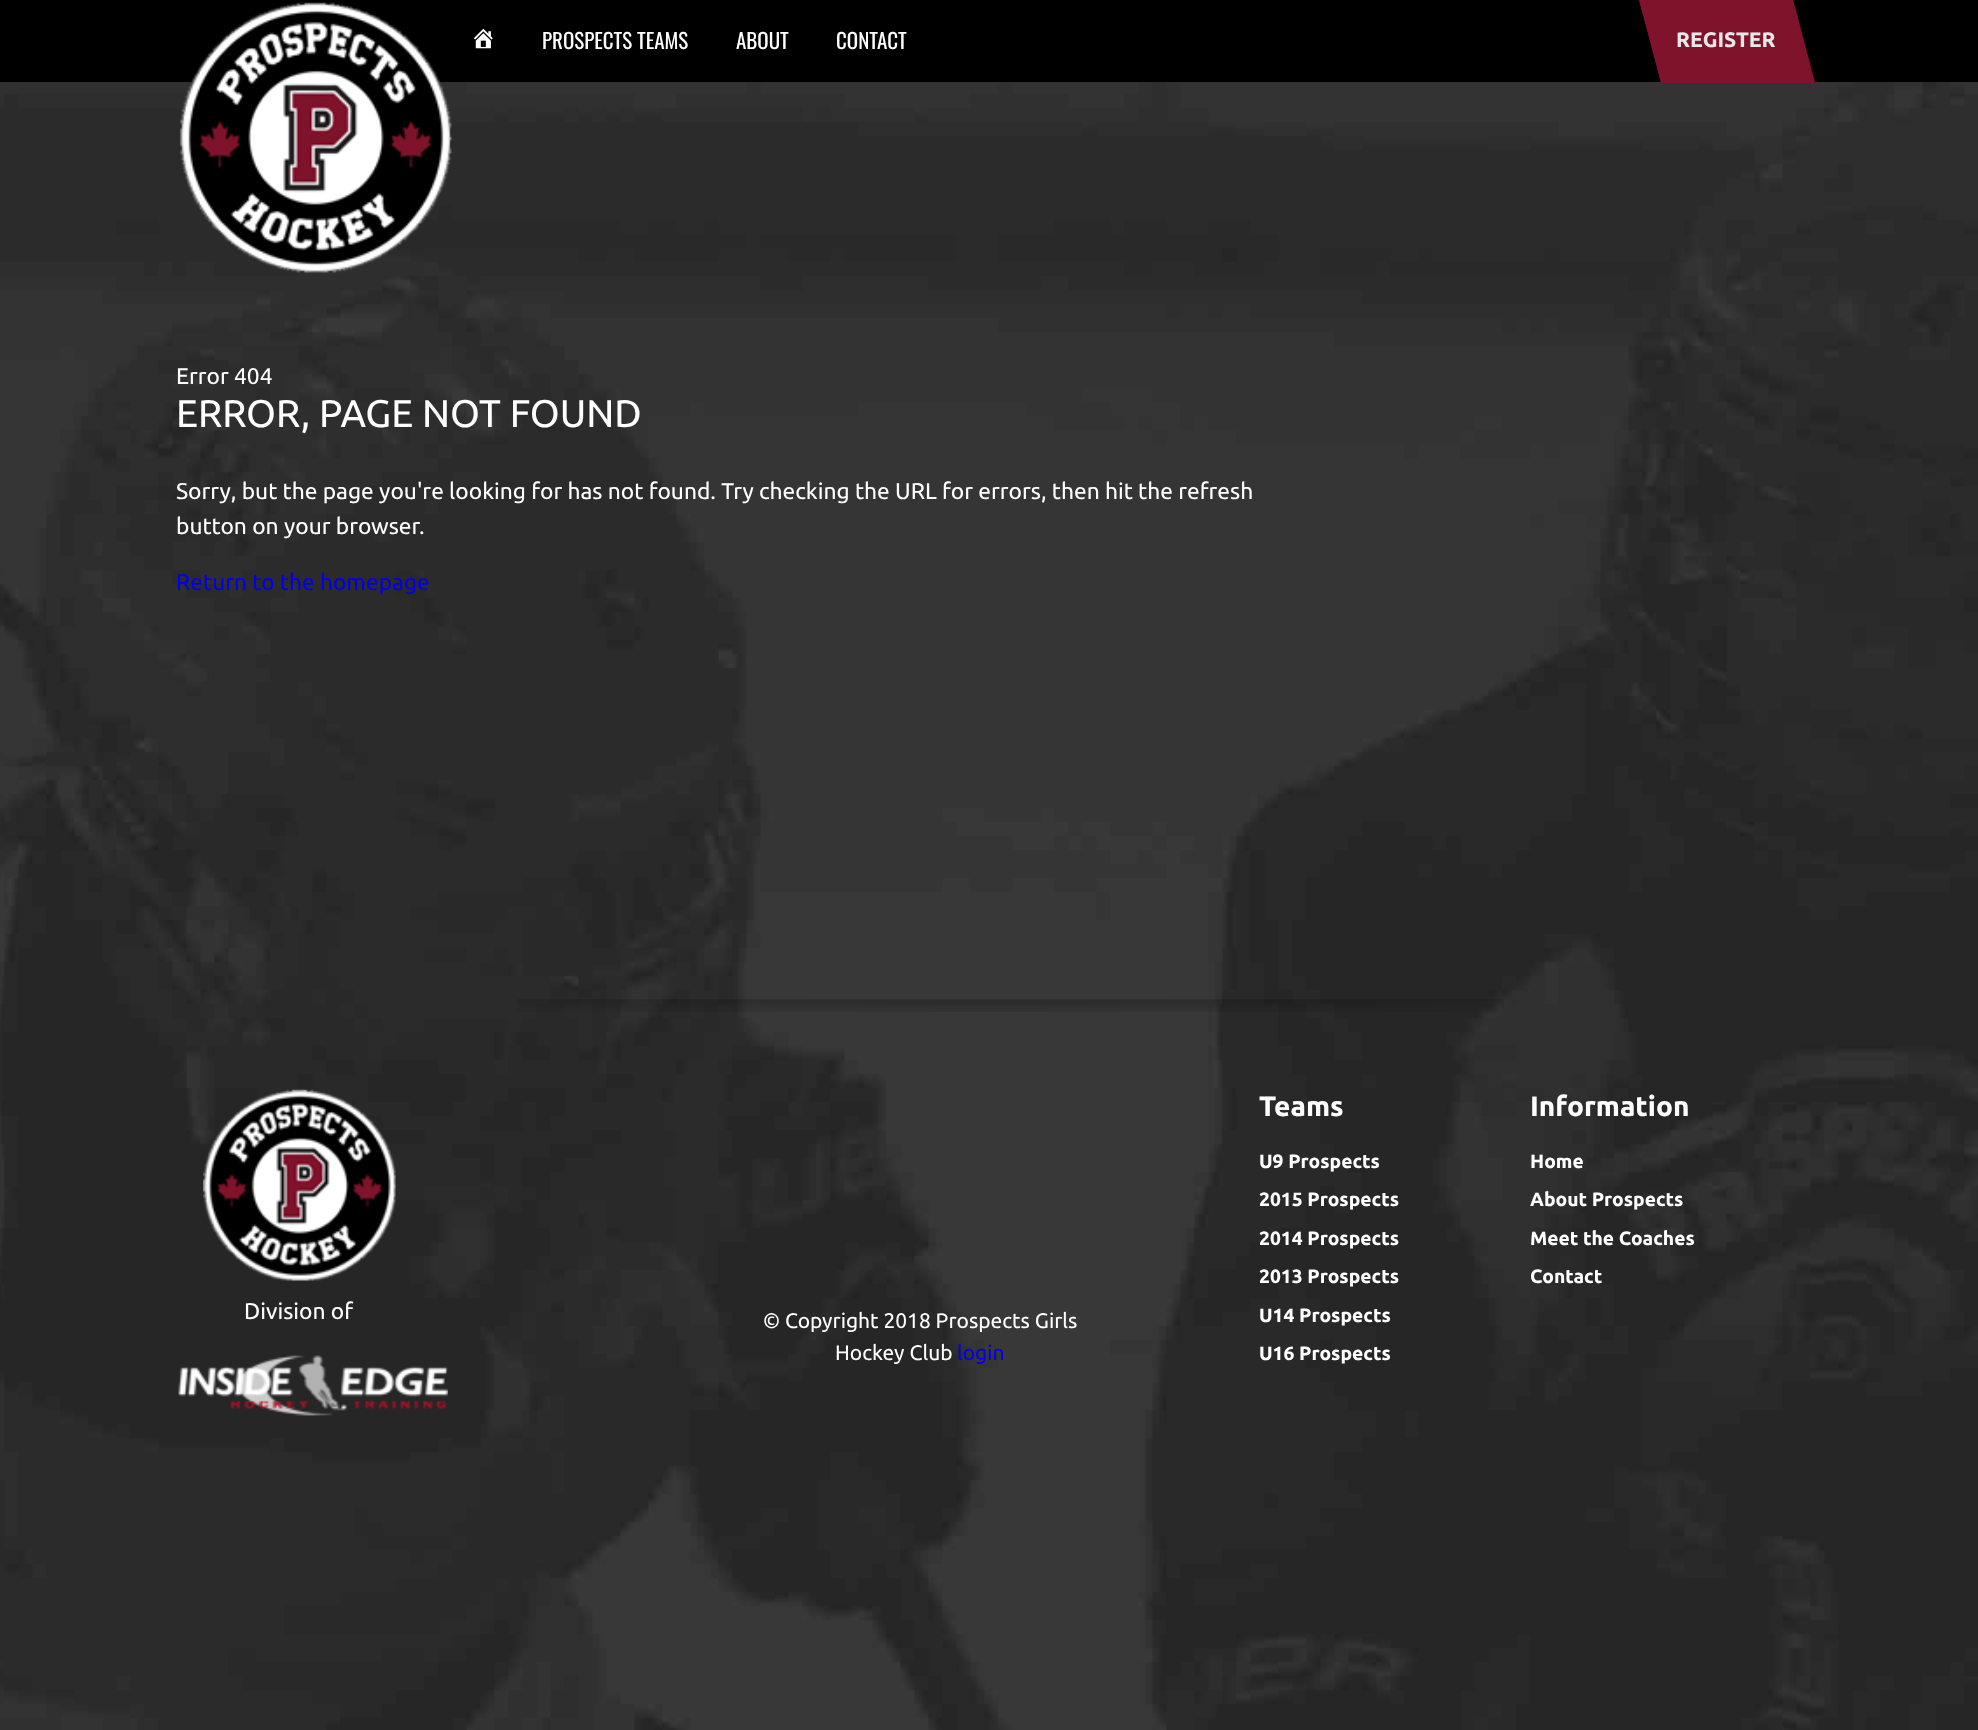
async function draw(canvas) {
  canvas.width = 1978
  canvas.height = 1730
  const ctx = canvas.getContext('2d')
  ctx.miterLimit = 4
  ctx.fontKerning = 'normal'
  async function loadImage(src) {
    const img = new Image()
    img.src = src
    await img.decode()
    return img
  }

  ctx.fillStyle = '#fff'
  ctx.fillRect(0, 0, 1978, 1730)
  ctx.drawImage(await loadImage('image0.png'), 0, 82, 1978, 1648)
  ctx.fillStyle = '#000'
  ctx.fillRect(0, 0, 1978, 82)
  ctx.drawImage(await loadImage('image1.png'), 179, 2, 273, 271)
  ctx.drawImage(await loadImage('image2.png'), 473, 28, 20, 21)
  ctx.font = '21px Oswald'
  ctx.fillStyle = '#fff'
  ctx.fillText('PROSPECTS TEAMS', 542, 49)
  ctx.fillText('ABOUT', 736, 49)
  ctx.fillText('CONTACT', 836, 49)
  ctx.fillStyle = '#7f132b'
  ctx.beginPath()
  ctx.moveTo(1649, 37)
  ctx.lineTo(1638, -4)
  ctx.lineTo(1792, -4)
  ctx.lineTo(1815, 83)
  ctx.lineTo(1661, 83)
  ctx.closePath()
  ctx.fill()
  ctx.beginPath()
  ctx.moveTo(1813, 83)
  ctx.lineTo(1790, -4)
  ctx.lineTo(1792, -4)
  ctx.lineTo(1815, 83)
  ctx.closePath()
  ctx.fill()
  ctx.beginPath()
  ctx.moveTo(1661, 81)
  ctx.lineTo(1814, 81)
  ctx.lineTo(1815, 83)
  ctx.lineTo(1661, 83)
  ctx.lineTo(1661, 82)
  ctx.closePath()
  ctx.fill()
  ctx.beginPath()
  ctx.moveTo(1664, -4)
  ctx.lineTo(1687, 82)
  ctx.lineTo(1661, 82)
  ctx.lineTo(1638, -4)
  ctx.closePath()
  ctx.fill()
  ctx.font = 'bold 21px Ubuntu'
  ctx.fillStyle = '#e8e8e8'
  ctx.fillText('REGISTER', 1676, 47)
  ctx.font = '22.75px Ubuntu'
  ctx.fillStyle = '#fff'
  ctx.fillText('Error 404', 176, 384)
  ctx.font = '38.5px Ubuntu'
  ctx.fillText('ERROR, PAGE NOT FOUND', 176, 427)
  ctx.font = '22.75px Ubuntu'
  ctx.fillText('Sorry, but the page you\'re looking for has not found. Try checking the URL for errors, then hit the refresh', 176, 499)
  ctx.fillText('button on your browser.', 176, 534)
  ctx.fillStyle = '#00e'
  ctx.fillText('Return to the homepage', 176, 590)
  ctx.drawImage(await loadImage('image3.png'), 517, 999, 987, 13)
  ctx.drawImage(await loadImage('image4.png'), 203, 1089, 193, 192)
  ctx.fillStyle = '#fff'
  ctx.fillText('Division of', 244, 1319)
  ctx.drawImage(await loadImage('image5.png'), 178, 1355, 270, 61)
  ctx.font = '21px Ubuntu'
  ctx.fillText('© Copyright 2018 Prospects Girls', 763, 1328)
  ctx.fillText('Hockey Club', 835, 1360)
  ctx.fillStyle = '#00e'
  ctx.fillText('login', 957, 1360)
  ctx.font = 'bold 28px Ubuntu'
  ctx.fillStyle = '#fff'
  ctx.fillText('Teams', 1259, 1116)
  ctx.font = 'bold 19.25px Ubuntu'
  ctx.fillText('U9 Prospects', 1259, 1168)
  ctx.fillText('2015 Prospects', 1259, 1206)
  ctx.fillText('2014 Prospects', 1259, 1245)
  ctx.fillText('2013 Prospects', 1259, 1283)
  ctx.fillText('U14 Prospects', 1259, 1322)
  ctx.fillText('U16 Prospects', 1259, 1360)
  ctx.font = 'bold 28px Ubuntu'
  ctx.fillText('Information', 1530, 1116)
  ctx.font = 'bold 19.25px Ubuntu'
  ctx.fillText('Home', 1530, 1168)
  ctx.fillText('About Prospects', 1530, 1206)
  ctx.fillText('Meet the Coaches', 1530, 1245)
  ctx.fillText('Contact', 1530, 1283)
}

draw(document.querySelector('canvas'))
